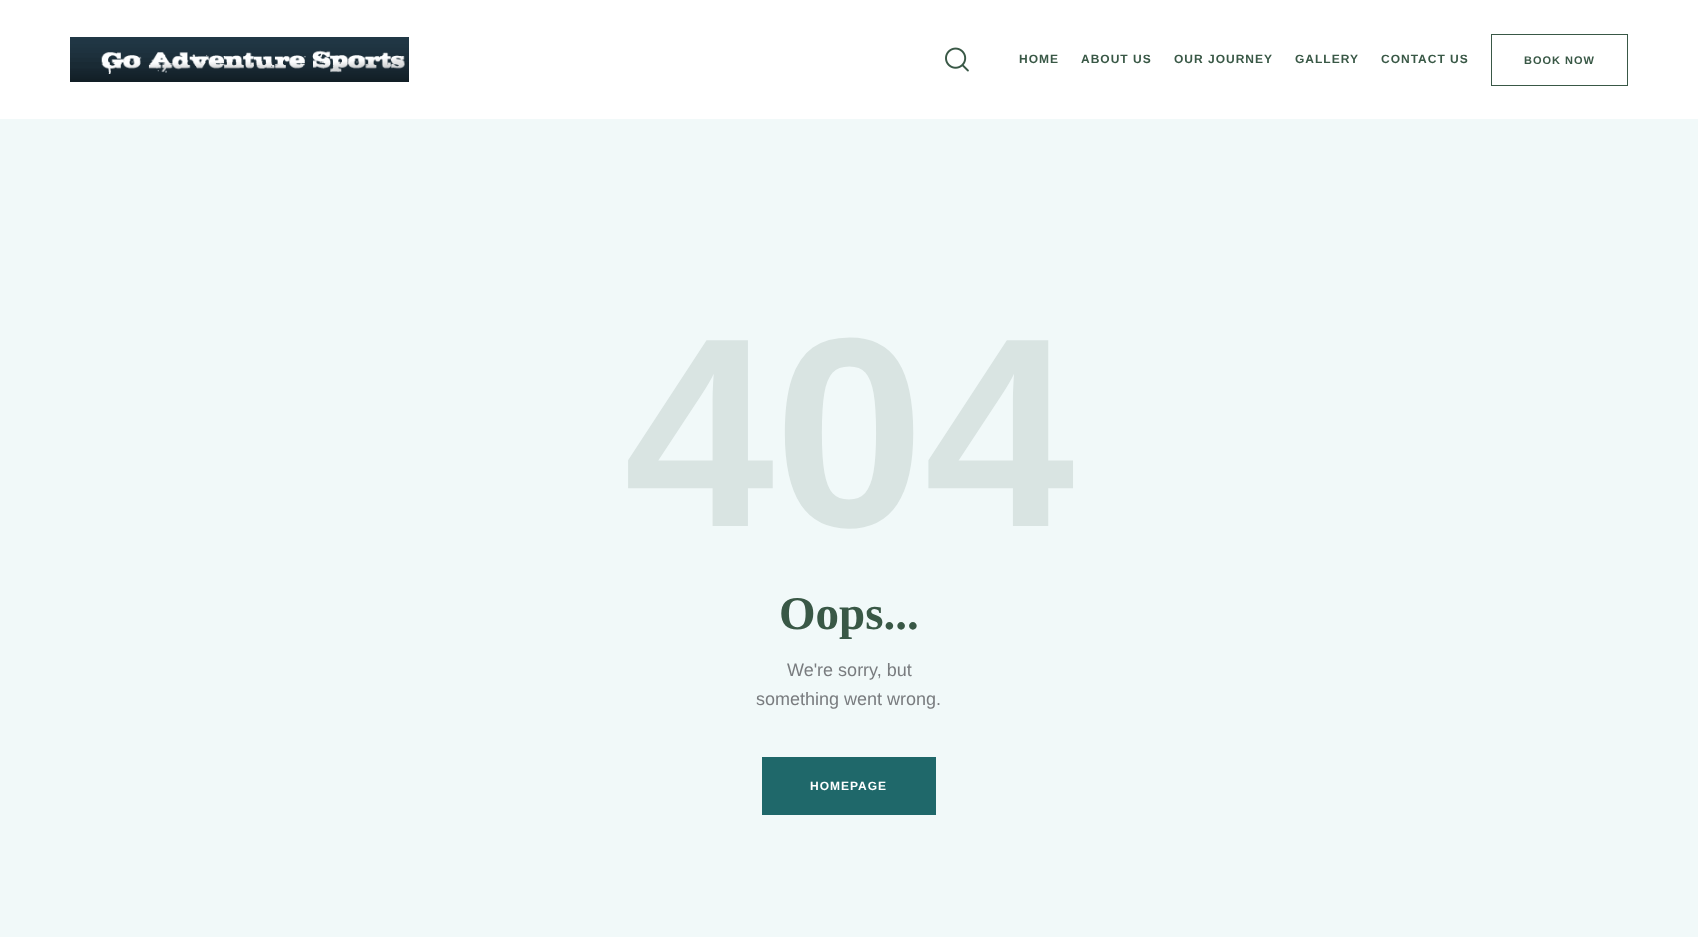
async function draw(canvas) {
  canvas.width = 1698
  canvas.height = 937
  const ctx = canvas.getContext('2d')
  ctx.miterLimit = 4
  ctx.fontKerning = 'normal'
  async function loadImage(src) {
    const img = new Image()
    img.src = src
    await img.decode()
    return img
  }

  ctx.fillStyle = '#f1f9f9'
  ctx.fillRect(0, 0, 1698, 937)
  ctx.fillStyle = '#fff'
  ctx.fillRect(0, 0, 1698, 119)
  ctx.drawImage(await loadImage('image0.png'), 70, 37, 339, 45)
  ctx.drawImage(await loadImage('image1.png'), 945, 47, 24, 25)
  ctx.letterSpacing = '1px'
  ctx.font = 'bold 12px Liberation Sans'
  ctx.fillStyle = '#395846'
  ctx.fillText('HOME', 1019, 63)
  ctx.fillText('ABOUT US', 1081, 63)
  ctx.fillText('OUR JOURNEY', 1174, 63)
  ctx.fillText('GALLERY', 1295, 63)
  ctx.fillText('CONTACT US', 1381, 63)
  ctx.strokeStyle = '#395846'
  ctx.strokeRect(1491.5, 34.5, 136, 51)
  ctx.font = 'bold 11px Liberation Sans'
  ctx.fillText('BOOK NOW', 1524, 64)
  ctx.letterSpacing = '0px'
  ctx.font = 'bold 270px Liberation Sans'
  ctx.fillStyle = '#d9e4e2'
  ctx.fillText('404', 624, 526)
  ctx.font = 'bold 47px Liberation Serif'
  ctx.fillStyle = '#395846'
  ctx.fillText('Oops...', 779, 629)
  ctx.font = '18px Liberation Sans'
  ctx.fillStyle = '#797c7f'
  ctx.fillText('We\'re sorry, but', 787, 676)
  ctx.fillText('something went wrong.', 756, 705)
  ctx.fillStyle = '#1f686a'
  ctx.fillRect(762, 757, 174, 58)
  ctx.letterSpacing = '1px'
  ctx.font = 'bold 12px Liberation Sans'
  ctx.fillStyle = '#fff'
  ctx.fillText('HOMEPAGE', 810, 790)
}

draw(document.querySelector('canvas'))
